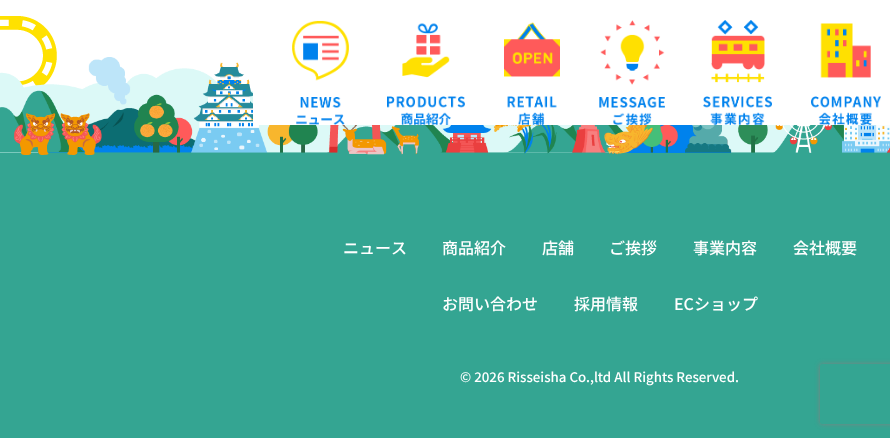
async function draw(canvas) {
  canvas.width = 890
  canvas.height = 438
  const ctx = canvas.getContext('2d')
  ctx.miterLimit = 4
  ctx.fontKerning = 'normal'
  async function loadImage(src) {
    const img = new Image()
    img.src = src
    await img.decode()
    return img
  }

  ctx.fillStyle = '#fff'
  ctx.fillRect(0, 0, 890, 438)
  ctx.drawImage(await loadImage('image0.png'), 0, 16, 57, 71)
  ctx.drawImage(await loadImage('image9.png'), 0, 68, 794, 85)
  ctx.drawImage(await loadImage('image7.png'), 0, 57, 844, 96)
  ctx.drawImage(await loadImage('image8.png'), 0, 62, 890, 93)
  ctx.fillRect(253, 62, 637, 63)
  ctx.drawImage(await loadImage('image1.png'), 292, 20, 57, 105)
  ctx.drawImage(await loadImage('image2.png'), 387, 23, 78, 102)
  ctx.drawImage(await loadImage('image3.png'), 504, 22, 56, 103)
  ctx.drawImage(await loadImage('image4.png'), 599, 20, 66, 105)
  ctx.drawImage(await loadImage('image5.png'), 703, 20, 69, 105)
  ctx.drawImage(await loadImage('image6.png'), 811, 23, 70, 102)
  ctx.fillStyle = '#34a592'
  ctx.fillRect(0, 155, 890, 283)
  ctx.font = '500 16px Noto Sans JP'
  ctx.fillStyle = '#fff'
  ctx.fillText('ニュース', 343, 254)
  ctx.fillText('商品紹介', 442, 254)
  ctx.fillText('店舗', 542, 254)
  ctx.fillText('ご挨拶', 609, 254)
  ctx.fillText('事業内容', 693, 254)
  ctx.fillText('会社概要', 793, 254)
  ctx.fillText('お問い合わせ', 442, 310)
  ctx.fillText('採用情報', 574, 310)
  ctx.fillText('ECショップ', 674, 310)
  ctx.font = '500 13.3px Noto Sans JP'
  ctx.fillText('© 2026 Risseisha Co.,ltd All Rights Reserved.', 460, 382)
  ctx.save()
  ctx.beginPath()
  ctx.moveTo(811, 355)
  ctx.lineTo(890, 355)
  ctx.lineTo(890, 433)
  ctx.lineTo(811, 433)
  ctx.closePath()
  ctx.moveTo(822, 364)
  ctx.lineTo(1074, 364)
  ctx.bezierCurveTo(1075, 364, 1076, 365, 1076, 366)
  ctx.lineTo(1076, 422)
  ctx.bezierCurveTo(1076, 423, 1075, 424, 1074, 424)
  ctx.lineTo(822, 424)
  ctx.bezierCurveTo(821, 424, 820, 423, 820, 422)
  ctx.lineTo(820, 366)
  ctx.bezierCurveTo(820, 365, 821, 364, 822, 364)
  ctx.closePath()
  ctx.clip('evenodd')
  ctx.fillStyle = '#808080'
  ctx.filter = 'blur(2.5px)'
  ctx.beginPath()
  ctx.roundRect(820, 364, 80, 60, 2)
  ctx.fill()
  ctx.filter = 'none'
  ctx.restore()
}

draw(document.querySelector('canvas'))
